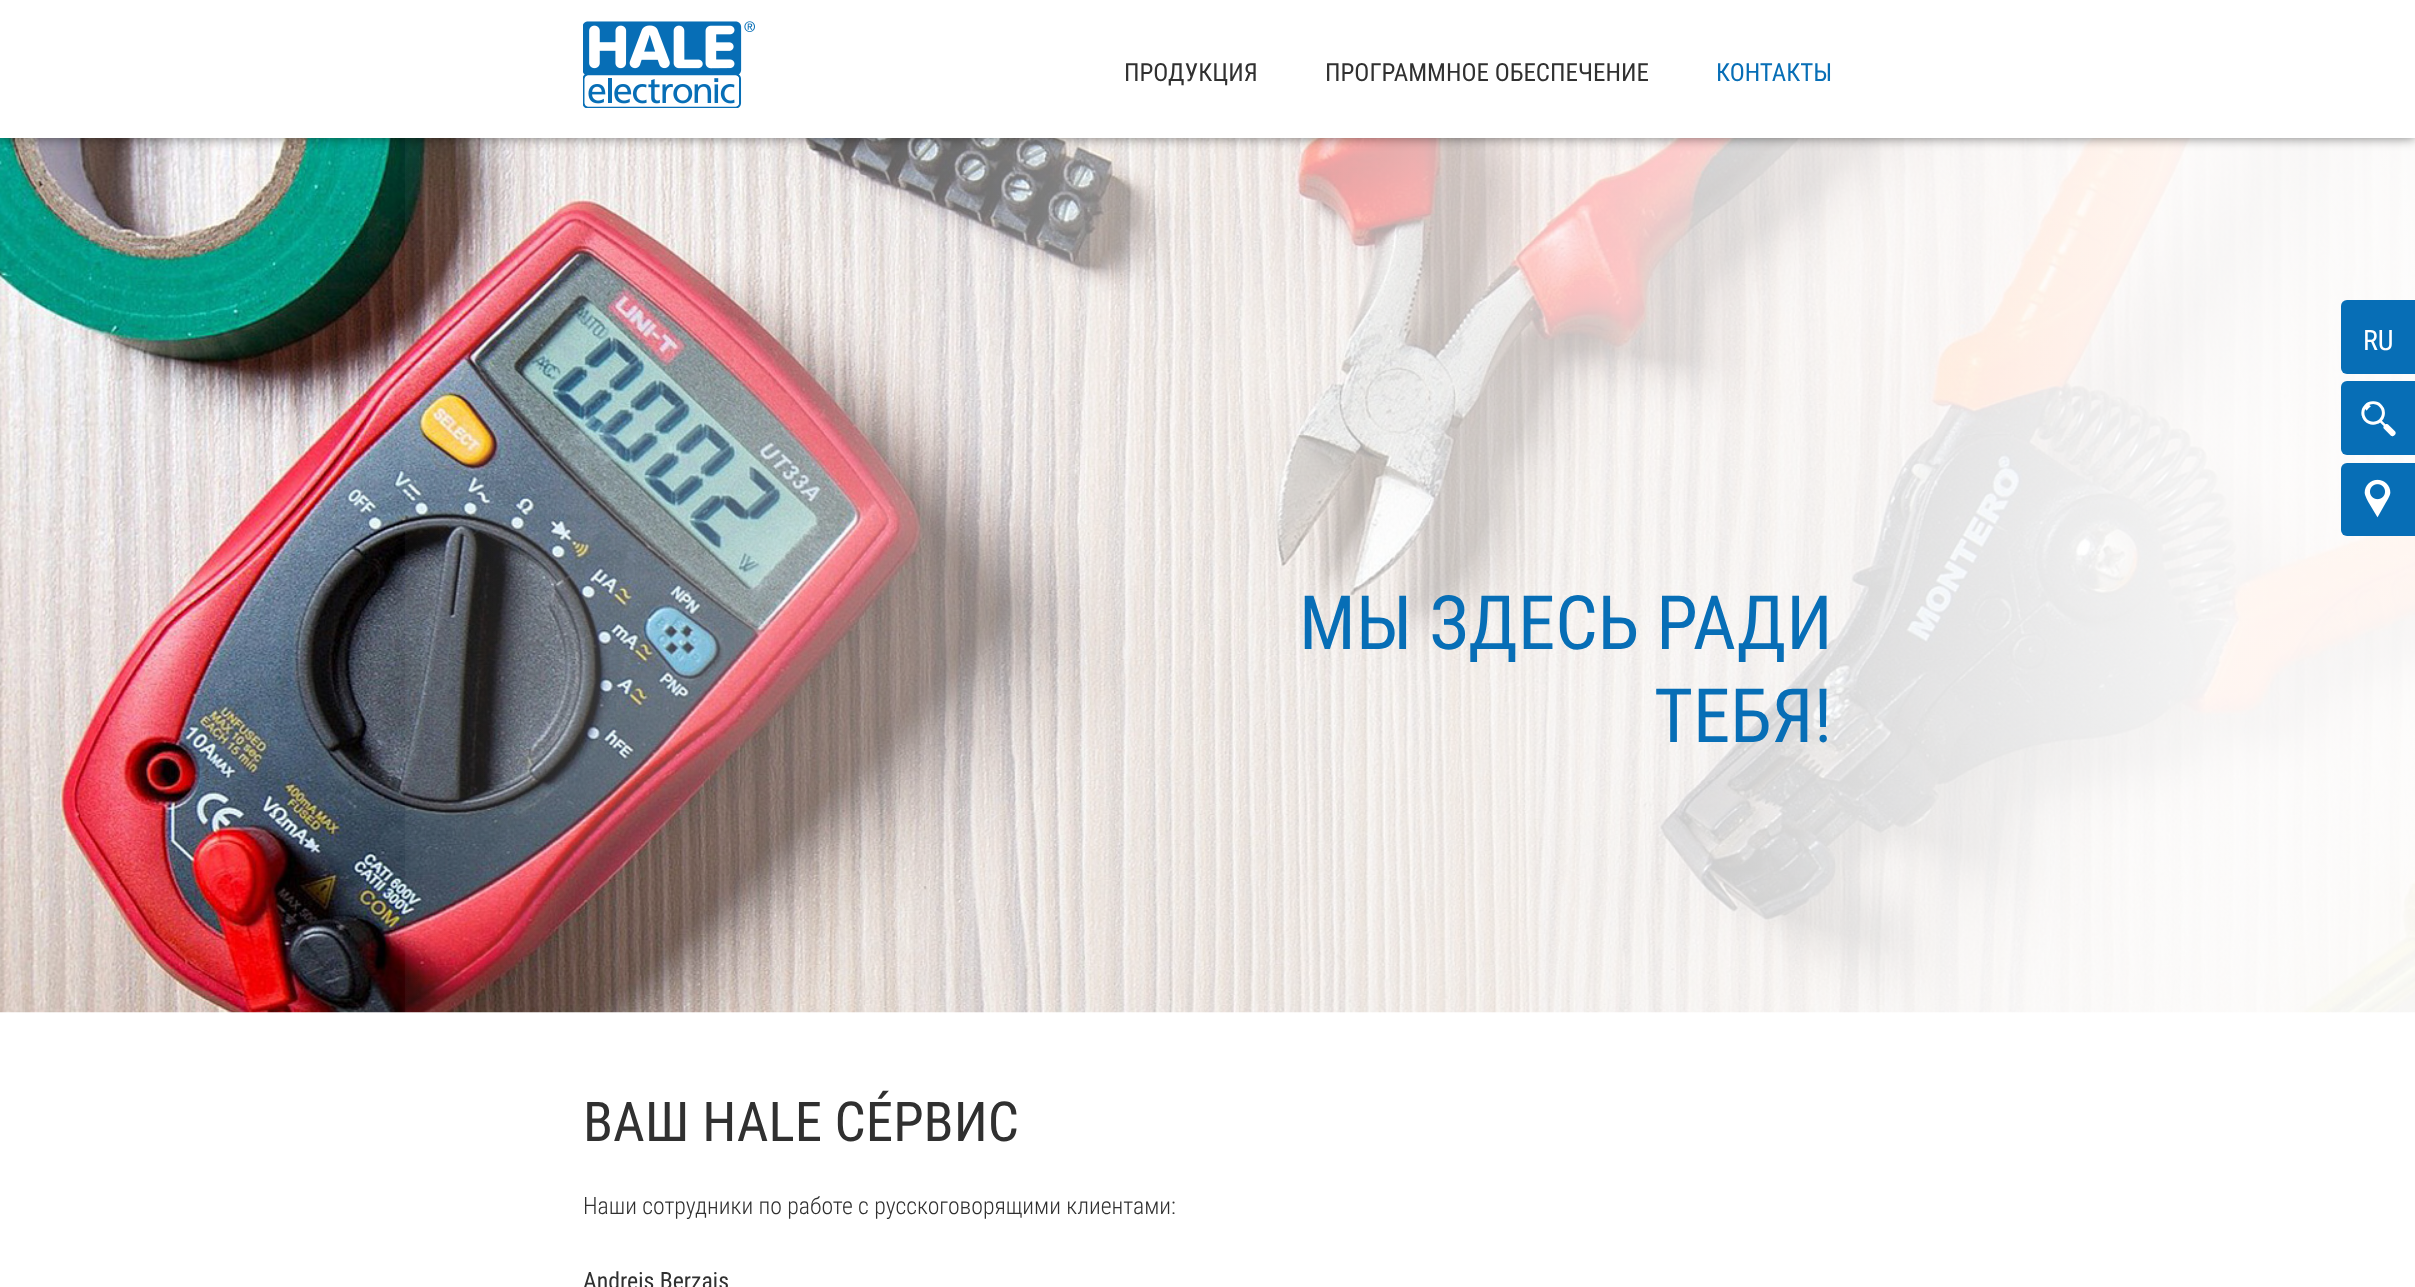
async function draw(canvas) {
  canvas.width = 2415
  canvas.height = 1287
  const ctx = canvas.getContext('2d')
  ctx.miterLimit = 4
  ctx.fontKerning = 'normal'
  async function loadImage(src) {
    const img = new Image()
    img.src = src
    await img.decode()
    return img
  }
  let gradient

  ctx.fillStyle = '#fff'
  ctx.fillRect(0, 0, 2415, 1287)
  ctx.drawImage(await loadImage('image2.png'), 0, 138, 2415, 875)
  gradient = ctx.createLinearGradient(353, 575, 2415, 575)
  gradient.addColorStop(0, '#ffffff00')
  gradient.addColorStop(0.9, '#ffffffc4')
  ctx.fillStyle = gradient
  ctx.fillRect(405, 138, 2010, 875)
  ctx.fillRect(405, 138, 2010, 875)
  ctx.fillStyle = '#00000080'
  ctx.filter = 'blur(6px)'
  ctx.beginPath()
  ctx.rect(0, 0, 2415, 138)
  ctx.fill()
  ctx.filter = 'none'
  ctx.fillStyle = '#fff'
  ctx.fillRect(0, 0, 2415, 138)
  ctx.drawImage(await loadImage('image0.png'), 583, 21, 172, 87)
  ctx.font = '25px "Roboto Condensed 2"'
  ctx.fillStyle = '#303030'
  ctx.fillText('ПРОДУКЦИЯ', 1124, 81)
  ctx.fillText('ПРОГРАММНОЕ ОБЕСПЕЧЕНИЕ', 1325, 81)
  ctx.fillStyle = '#076eb6'
  ctx.fillText('КОНТАКТЫ', 1716, 81)
  ctx.beginPath()
  ctx.roundRect(2341, 300, 74, 74, [6, 0, 0, 6])
  ctx.fill()
  ctx.font = '28px "Roboto Condensed 2"'
  ctx.fillStyle = '#fff'
  ctx.fillText('RU', 2363, 350)
  ctx.fillStyle = '#076eb6'
  ctx.beginPath()
  ctx.roundRect(2341, 381, 74, 74, [6, 0, 0, 6])
  ctx.fill()
  ctx.font = '35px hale'
  ctx.fillStyle = '#fff'
  ctx.fillText('🔍', 2361, 434)
  ctx.fillStyle = '#076eb6'
  ctx.beginPath()
  ctx.roundRect(2341, 463, 74, 73, [6, 0, 0, 6])
  ctx.fill()
  ctx.drawImage(await loadImage('image1.png'), 2364, 479, 27, 39)
  ctx.font = '75px "Roboto Condensed 2"'
  ctx.fillText('МЫ ЗДЕСЬ РАДИ', 1299, 649)
  ctx.fillText('ТЕБЯ!', 1654, 742)
  ctx.font = '55px Roboto Condensed'
  ctx.fillStyle = '#303030'
  ctx.fillText('ВАШ HALE СЕ́РВИС', 583, 1141)
  ctx.font = '300 23.75px Roboto Condensed'
  ctx.fillText('Наши сотрудники по работе с русскоговорящими клиентами:', 583, 1214)
  ctx.font = '23.75px "Roboto Condensed 2"'
  ctx.fillText('Andrejs Berzajs', 583, 1289)
}

draw(document.querySelector('canvas'))
